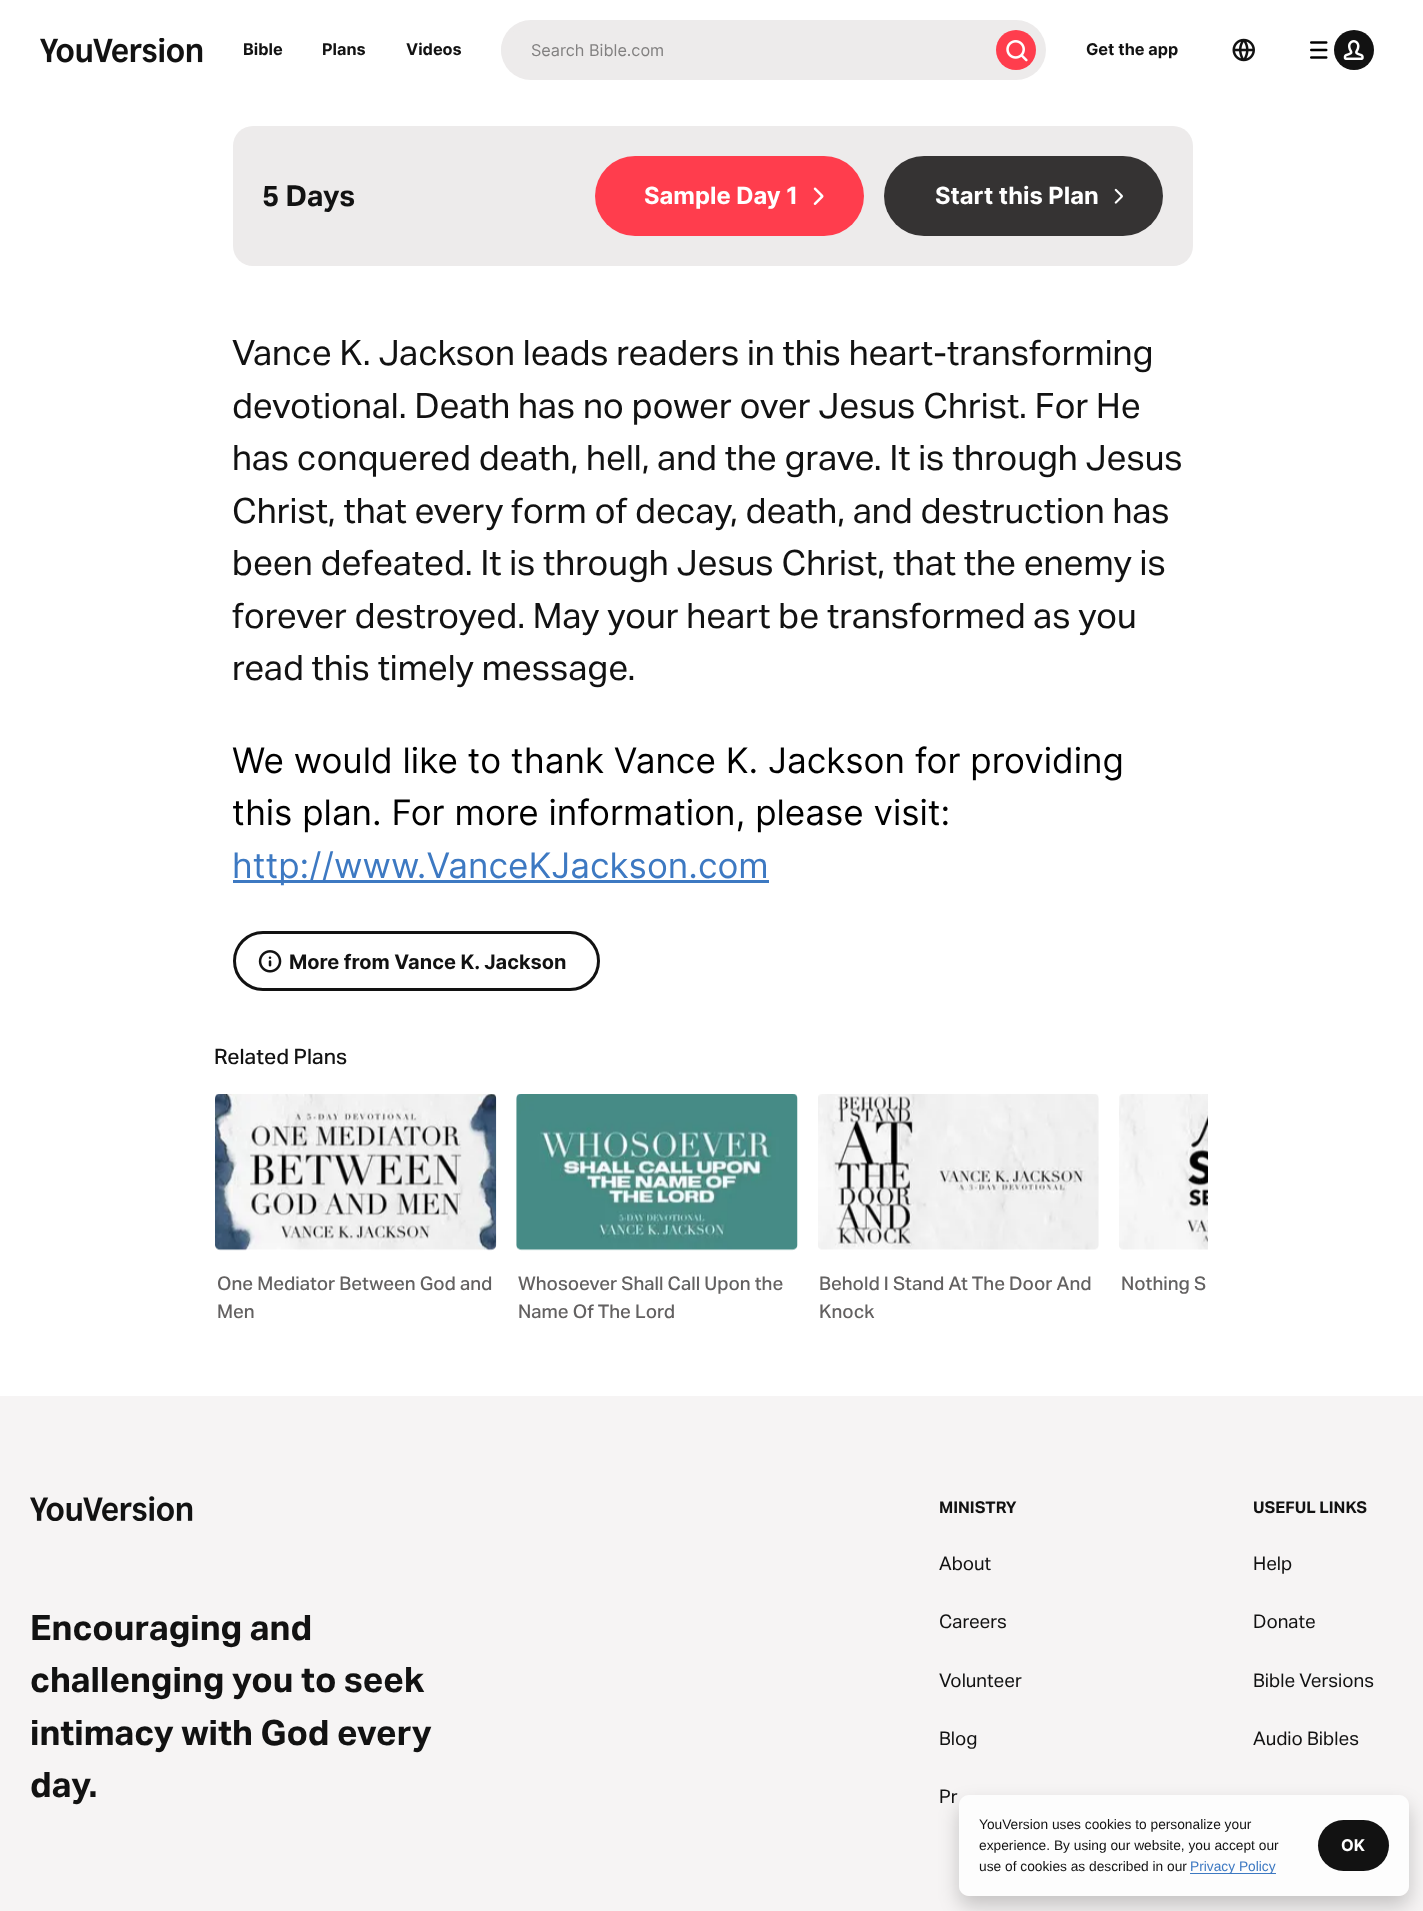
async function draw(canvas) {
  canvas.width = 1423
  canvas.height = 1911
  const ctx = canvas.getContext('2d')
  ctx.miterLimit = 4
  ctx.fontKerning = 'normal'
  async function loadImage(src) {
    const img = new Image()
    img.src = src
    await img.decode()
    return img
  }

  ctx.fillStyle = '#fff'
  ctx.fillRect(0, 0, 1423, 1911)
  ctx.drawImage(await loadImage('image0.png'), 40, 38, 163, 25)
  ctx.font = 'bold 16.25px Inter'
  ctx.fillStyle = '#121212'
  ctx.fillText('Bible', 243, 55)
  ctx.fillText('Plans', 322, 55)
  ctx.fillText('Videos', 406, 55)
  ctx.fillStyle = '#edebeb'
  ctx.beginPath()
  ctx.roundRect(501, 20, 545, 60, 30)
  ctx.fill()
  ctx.beginPath()
  ctx.roundRect(501, 30, 485, 40, 20)
  ctx.fill()
  ctx.font = '16.25px Inter'
  ctx.fillStyle = '#828080'
  ctx.fillText('Search Bible.com', 531, 56)
  ctx.fillStyle = '#ff3d4d'
  ctx.beginPath()
  ctx.arc(1016, 50, 20, 0, 2 * Math.PI)
  ctx.fill()
  ctx.drawImage(await loadImage('image1.png'), 1006, 40, 22, 22)
  ctx.font = 'bold 16.25px Inter'
  ctx.fillStyle = '#121212'
  ctx.fillText('Get the app', 1086, 55)
  ctx.drawImage(await loadImage('image2.png'), 1232, 38, 23, 24)
  ctx.drawImage(await loadImage('image3.png'), 1310, 41, 18, 18)
  ctx.beginPath()
  ctx.arc(1354, 50, 20, 0, 2 * Math.PI)
  ctx.fill()
  ctx.drawImage(await loadImage('image4.png'), 1343, 40, 21, 20)
  ctx.fillStyle = '#edebeb'
  ctx.beginPath()
  ctx.roundRect(233, 126, 960, 140, 20)
  ctx.fill()
  ctx.font = 'bold 29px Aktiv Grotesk'
  ctx.fillStyle = '#121212'
  ctx.fillText('5 Days', 262, 206)
  ctx.fillStyle = '#ff3d4d'
  ctx.beginPath()
  ctx.roundRect(595, 156, 269, 80, 40)
  ctx.fill()
  ctx.font = 'bold 23.75px Inter'
  ctx.fillStyle = '#fff'
  ctx.fillText('Sample Day 1', 644, 204)
  ctx.drawImage(await loadImage('image5.png'), 813, 187, 11, 18)
  ctx.fillStyle = '#353333'
  ctx.beginPath()
  ctx.roundRect(884, 156, 279, 80, 40)
  ctx.fill()
  ctx.fillStyle = '#fff'
  ctx.fillText('Start this Plan', 935, 204)
  ctx.drawImage(await loadImage('image6.png'), 1114, 188, 9, 16)
  ctx.font = '35px Aktiv Grotesk'
  ctx.fillStyle = '#121212'
  ctx.fillText('Vance K. Jackson leads readers in this heart-transforming', 232, 365)
  ctx.fillText('devotional. Death has no power over Jesus Christ. For He', 232, 418)
  ctx.fillText('has conquered death, hell, and the grave. It is through Jesus', 232, 470)
  ctx.fillText('Christ, that every form of decay, death, and destruction has', 232, 523)
  ctx.fillText('been defeated. It is through Jesus Christ, that the enemy is', 232, 575)
  ctx.fillText('forever destroyed. May your heart be transformed as you', 232, 628)
  ctx.fillText('read this timely message.', 232, 680)
  ctx.font = '35px Inter'
  ctx.fillStyle = '#000'
  ctx.fillText('We would like to thank Vance K. Jackson for providing', 232, 773)
  ctx.fillText('this plan. For more information, please visit:', 232, 825)
  ctx.fillStyle = '#3d79c2'
  ctx.fillRect(233, 880, 536, 3)
  ctx.fillText('http://www.VanceKJackson.com', 232, 878)
  ctx.beginPath()
  ctx.roundRect(234.5, 932.5, 364, 57, 28.5)
  ctx.strokeStyle = '#121212'
  ctx.lineWidth = 3
  ctx.stroke()
  ctx.drawImage(await loadImage('image7.png'), 258, 950, 24, 23)
  ctx.font = 'bold 20px Inter'
  ctx.fillStyle = '#121212'
  ctx.fillText('More from Vance K. Jackson', 289, 969)
  ctx.font = '500 21.25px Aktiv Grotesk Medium'
  ctx.fillText('Related Plans', 214, 1064)
  ctx.drawImage(await loadImage('image8.png'), 215, 1094, 282, 157)
  ctx.font = '500 18.75px Aktiv Grotesk Medium'
  ctx.fillStyle = '#636161'
  ctx.fillText('One Mediator Between God and', 217, 1290)
  ctx.fillText('Men', 217, 1318)
  ctx.drawImage(await loadImage('image9.png'), 516, 1094, 282, 157)
  ctx.fillText('Whosoever Shall Call Upon the', 518, 1290)
  ctx.fillText('Name Of The Lord', 518, 1318)
  ctx.drawImage(await loadImage('image10.png'), 818, 1094, 281, 156)
  ctx.fillText('Behold I Stand At The Door And', 819, 1290)
  ctx.fillText('Knock', 819, 1318)
  ctx.drawImage(await loadImage('image11.png'), 1119, 1094, 89, 156)
  ctx.fillText('Nothing S', 1121, 1290)
  ctx.fillStyle = '#f6f4f4'
  ctx.fillRect(0, 1396, 1423, 515)
  ctx.drawImage(await loadImage('image12.png'), 30, 1496, 163, 25)
  ctx.font = 'bold 35px Aktiv Grotesk'
  ctx.fillStyle = '#121212'
  ctx.fillText('Encouraging and', 30, 1640)
  ctx.fillText('challenging you to seek', 30, 1692)
  ctx.fillText('intimacy with God every', 30, 1745)
  ctx.fillText('day.', 30, 1797)
  ctx.font = 'bold 16.25px Aktiv Grotesk'
  ctx.fillText('MINISTRY', 939, 1513)
  ctx.font = '18.75px Aktiv Grotesk'
  ctx.fillText('About', 939, 1570)
  ctx.fillText('Careers', 939, 1628)
  ctx.fillText('Volunteer', 939, 1687)
  ctx.fillText('Blog', 939, 1745)
  ctx.fillText('Pr', 939, 1803)
  ctx.font = 'bold 16.25px Aktiv Grotesk'
  ctx.fillText('USEFUL LINKS', 1253, 1513)
  ctx.font = '18.75px Aktiv Grotesk'
  ctx.fillText('Help', 1253, 1570)
  ctx.fillText('Donate', 1253, 1628)
  ctx.fillText('Bible Versions', 1253, 1687)
  ctx.fillText('Audio Bibles', 1253, 1745)
  ctx.save()
  ctx.beginPath()
  ctx.moveTo(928, 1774)
  ctx.lineTo(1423, 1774)
  ctx.lineTo(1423, 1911)
  ctx.lineTo(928, 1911)
  ctx.closePath()
  ctx.moveTo(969, 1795)
  ctx.lineTo(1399, 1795)
  ctx.bezierCurveTo(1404.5, 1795, 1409, 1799.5, 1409, 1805)
  ctx.lineTo(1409, 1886)
  ctx.bezierCurveTo(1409, 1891.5, 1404.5, 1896, 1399, 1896)
  ctx.lineTo(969, 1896)
  ctx.bezierCurveTo(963.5, 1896, 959, 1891.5, 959, 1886)
  ctx.lineTo(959, 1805)
  ctx.bezierCurveTo(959, 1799.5, 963.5, 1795, 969, 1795)
  ctx.closePath()
  ctx.clip('evenodd')
  ctx.fillStyle = '#00000033'
  ctx.filter = 'blur(10px)'
  ctx.beginPath()
  ctx.roundRect(959, 1805, 450, 101, 10)
  ctx.fill()
  ctx.filter = 'none'
  ctx.restore()
  ctx.fillStyle = '#ffffffcc'
  ctx.beginPath()
  ctx.roundRect(959, 1795, 450, 101, 10)
  ctx.fill()
  ctx.font = '13.75px Liberation Sans'
  ctx.fillStyle = '#121212'
  ctx.fillText('YouVersion uses cookies to personalize your', 979, 1829)
  ctx.fillText('experience. By using our website, you accept our', 979, 1850)
  ctx.fillText('use of cookies as described in our', 979, 1871)
  ctx.fillStyle = '#3d79c2'
  ctx.fillRect(1190, 1873, 86, 1)
  ctx.fillText('Privacy Policy', 1190, 1871)
  ctx.fillStyle = '#121212'
  ctx.beginPath()
  ctx.roundRect(1318, 1820, 71, 51, 25.5)
  ctx.fill()
  ctx.font = 'bold 16.25px Inter'
  ctx.fillStyle = '#fff'
  ctx.fillText('OK', 1341, 1851)
}

draw(document.querySelector('canvas'))
